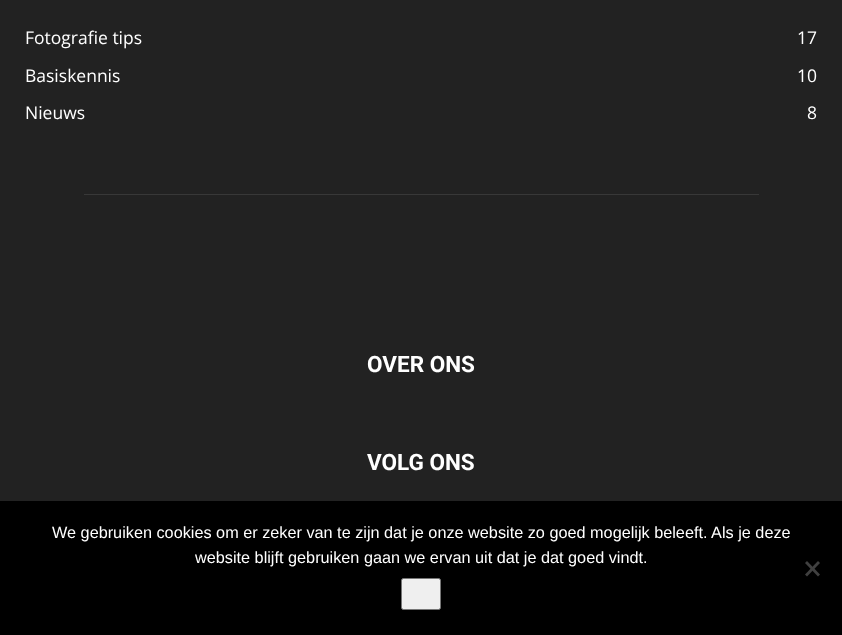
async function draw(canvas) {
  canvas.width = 842
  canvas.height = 635
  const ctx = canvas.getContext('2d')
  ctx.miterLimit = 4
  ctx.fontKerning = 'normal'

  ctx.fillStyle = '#222'
  ctx.fillRect(0, 0, 842, 635)
  ctx.font = '17.5px Open Sans'
  ctx.fillStyle = '#fff'
  ctx.fillText('Fotografie tips', 25, 44)
  ctx.fillText('17', 797, 44)
  ctx.fillText('Basiskennis', 25, 82)
  ctx.fillText('10', 797, 82)
  ctx.fillText('Nieuws', 25, 119)
  ctx.fillText('8', 807, 119)
  ctx.fillStyle = '#383838'
  ctx.fillRect(84, 194, 675, 1)
  ctx.font = 'bold 22.5px Roboto'
  ctx.fillStyle = '#fff'
  ctx.fillText('OVER ONS', 367, 372)
  ctx.fillText('VOLG ONS', 367, 470)
  ctx.fillStyle = '#000'
  ctx.fillRect(0, 501, 842, 134)
  ctx.font = '16.25px Liberation Sans'
  ctx.fillStyle = '#fff'
  ctx.fillText('We gebruiken cookies om er zeker van te zijn dat je onze website zo goed mogelijk beleeft. Als je deze', 52, 538)
  ctx.fillText('website blijft gebruiken gaan we ervan uit dat je dat goed vindt.', 195, 563)
  ctx.fillStyle = '#404040'
  ctx.beginPath()
  ctx.moveTo(818, 561)
  ctx.lineTo(820, 563)
  ctx.lineTo(807, 576.5)
  ctx.lineTo(805, 574.5)
  ctx.closePath()
  ctx.fill()
  ctx.beginPath()
  ctx.moveTo(805, 563)
  ctx.lineTo(807, 561)
  ctx.lineTo(820, 574.5)
  ctx.lineTo(818, 576.5)
  ctx.closePath()
  ctx.fill()
  ctx.fillStyle = '#efefef'
  ctx.beginPath()
  ctx.roundRect(401.5, 578.5, 39, 31, 2)
  ctx.fill()
  ctx.strokeStyle = '#767676'
  ctx.stroke()
}

draw(document.querySelector('canvas'))
